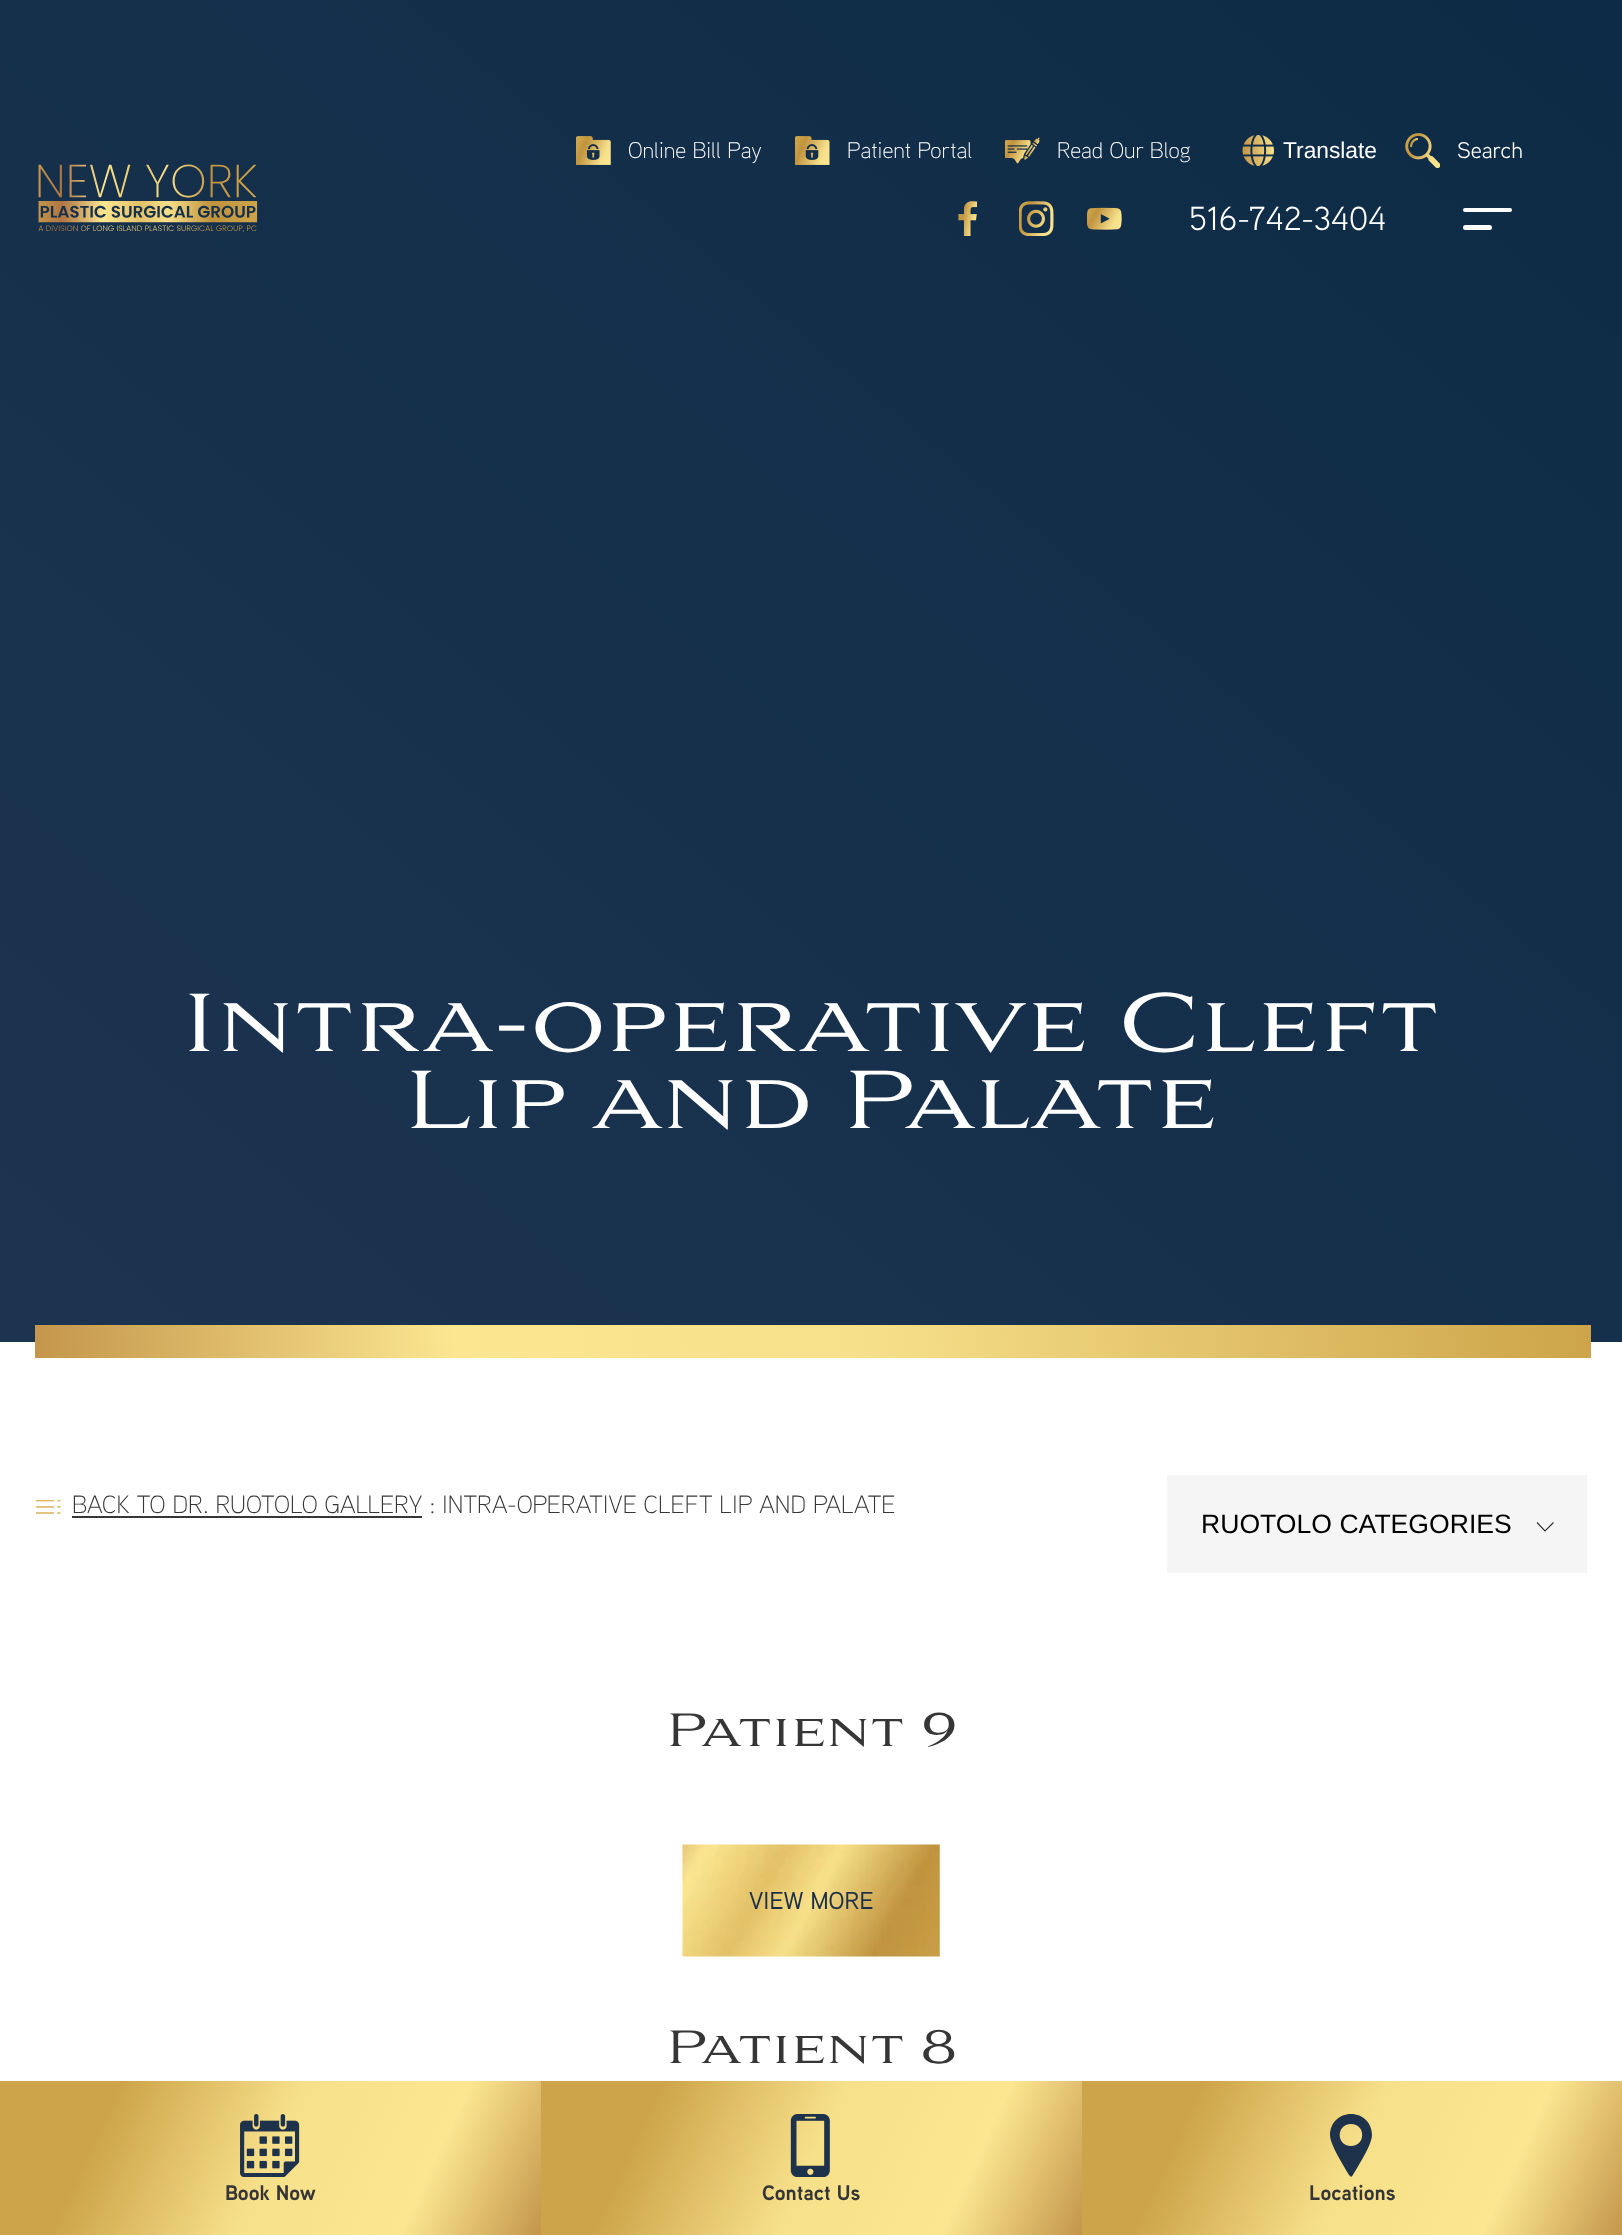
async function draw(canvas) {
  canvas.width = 1622
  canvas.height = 2235
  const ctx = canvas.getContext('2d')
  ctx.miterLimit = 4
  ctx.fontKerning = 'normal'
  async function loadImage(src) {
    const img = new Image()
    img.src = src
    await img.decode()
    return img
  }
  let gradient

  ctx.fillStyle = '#fff'
  ctx.fillRect(0, 0, 1622, 2235)
  gradient = ctx.createLinearGradient(1477, -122, 146, 1464)
  gradient.addColorStop(0, '#0d2b46')
  gradient.addColorStop(1, '#1d3451')
  ctx.fillStyle = gradient
  ctx.fillRect(0, 0, 1622, 1342)
  ctx.drawImage(await loadImage('image0.png'), 576, 136, 35, 29)
  ctx.font = '300 22.75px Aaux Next'
  ctx.fillStyle = '#fff'
  ctx.fillText('Online Bill Pay', 628, 158)
  ctx.drawImage(await loadImage('image1.png'), 795, 136, 35, 29)
  ctx.fillText('Patient Portal', 847, 158)
  ctx.drawImage(await loadImage('image2.png'), 1005, 137, 35, 27)
  ctx.fillText('Read Our Blog', 1057, 158)
  ctx.drawImage(await loadImage('image3.png'), 1242, 135, 32, 31)
  ctx.font = '22.75px Liberation Sans'
  ctx.fillText('Translate', 1283, 158)
  ctx.drawImage(await loadImage('image4.png'), 1405, 133, 35, 35)
  ctx.font = '22.75px Aaux Next'
  ctx.fillText('Search', 1457, 158)
  ctx.drawImage(await loadImage('image5.png'), 958, 201, 19, 35)
  ctx.drawImage(await loadImage('image6.png'), 1019, 201, 35, 35)
  ctx.drawImage(await loadImage('image7.png'), 1087, 207, 35, 23)
  ctx.font = '33.25px Aaux Next'
  ctx.fillText('516-742-3404', 1189, 230)
  ctx.beginPath()
  ctx.roundRect(1463, 225, 29, 5, 2.5)
  ctx.fill()
  ctx.beginPath()
  ctx.roundRect(1463, 208, 49, 4, 2)
  ctx.fill()
  ctx.drawImage(await loadImage('image8.png'), 38, 164, 220, 69)
  ctx.font = '300 77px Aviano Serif'
  ctx.fillText('Intra-operative Cleft', 182, 1051)
  ctx.fillText('Lip and Palate', 404, 1128)
  gradient = ctx.createLinearGradient(37, 1396, 1587, 1287)
  gradient.addColorStop(0, '#c4964b')
  gradient.addColorStop(0.27, '#fce690')
  gradient.addColorStop(0.53, '#f7e08a')
  gradient.addColorStop(1, '#cda449')
  ctx.fillStyle = gradient
  ctx.fillRect(35, 1325, 1556, 33)
  ctx.drawImage(await loadImage('image9.png'), 35, 1500, 26, 14)
  ctx.font = '300 24.95px Aaux Next'
  ctx.fillStyle = '#363636'
  ctx.fillText('BACK TO DR. RUOTOLO GALLERY : INTRA-OPERATIVE CLEFT LIP AND PALATE', 72, 1513)
  ctx.fillRect(72, 1516, 350, 2)
  ctx.fillStyle = '#f5f5f5'
  ctx.fillRect(1167, 1475, 420, 98)
  ctx.font = '26.6px Liberation Sans'
  ctx.fillStyle = '#000'
  ctx.fillText('RUOTOLO CATEGORIES', 1201, 1533)
  ctx.beginPath()
  ctx.moveTo(1537, 1522.5)
  ctx.lineTo(1545, 1531)
  ctx.lineTo(1553.5, 1522.5)
  ctx.strokeStyle = '#2f2f2f'
  ctx.lineWidth = 1.1
  ctx.stroke()
  ctx.font = '300 43.75px Aviano Serif'
  ctx.fillStyle = '#363636'
  ctx.fillText('Patient 9', 666, 1746)
  ctx.drawImage(await loadImage('image10.png'), 682, 1844, 258, 113)
  ctx.font = '500 24.5px Aaux Next'
  ctx.fillStyle = '#1d304a'
  ctx.fillText('VIEW MORE', 749, 1909)
  ctx.font = '300 43.75px Aviano Serif'
  ctx.fillStyle = '#363636'
  ctx.fillText('Patient 8', 666, 2063)
  gradient = ctx.createLinearGradient(522, 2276, 18, 2041)
  gradient.addColorStop(0, '#c4964b')
  gradient.addColorStop(0.23, '#fce690')
  gradient.addColorStop(0.5, '#f7e08a')
  gradient.addColorStop(0.8, '#cda449')
  ctx.fillStyle = gradient
  ctx.fillRect(0, 2081, 541, 154)
  ctx.drawImage(await loadImage('image11.png'), 240, 2114, 60, 63)
  ctx.font = 'bold 21px Aaux Next'
  ctx.fillStyle = '#363636'
  ctx.fillText('Book Now', 225, 2200)
  gradient = ctx.createLinearGradient(1063, 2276, 559, 2041)
  gradient.addColorStop(0, '#c4964b')
  gradient.addColorStop(0.23, '#fce690')
  gradient.addColorStop(0.5, '#f7e08a')
  gradient.addColorStop(0.8, '#cda449')
  ctx.fillStyle = gradient
  ctx.fillRect(541, 2081, 541, 154)
  ctx.drawImage(await loadImage('image12.png'), 790, 2114, 40, 63)
  ctx.fillStyle = '#363636'
  ctx.fillText('Contact Us', 762, 2200)
  gradient = ctx.createLinearGradient(1604, 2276, 1100, 2041)
  gradient.addColorStop(0, '#c4964b')
  gradient.addColorStop(0.23, '#fce690')
  gradient.addColorStop(0.5, '#f7e08a')
  gradient.addColorStop(0.8, '#cda449')
  ctx.fillStyle = gradient
  ctx.fillRect(1082, 2081, 540, 154)
  ctx.fillStyle = '#1e324c'
  ctx.beginPath()
  ctx.moveTo(1351, 2114)
  ctx.bezierCurveTo(1339, 2114, 1330, 2123, 1330, 2135)
  ctx.bezierCurveTo(1330, 2146, 1349, 2174, 1349, 2175)
  ctx.lineTo(1351, 2177)
  ctx.lineTo(1353, 2175)
  ctx.bezierCurveTo(1353, 2174, 1372, 2146, 1372, 2135)
  ctx.bezierCurveTo(1372, 2123, 1363, 2114, 1351, 2114)
  ctx.closePath()
  ctx.moveTo(1351, 2146)
  ctx.bezierCurveTo(1336, 2146, 1336, 2124, 1351, 2124)
  ctx.bezierCurveTo(1366, 2124, 1366, 2146, 1351, 2146)
  ctx.closePath()
  ctx.fill()
  ctx.fillStyle = '#363636'
  ctx.fillText('Locations', 1309, 2200)
}

draw(document.querySelector('canvas'))
